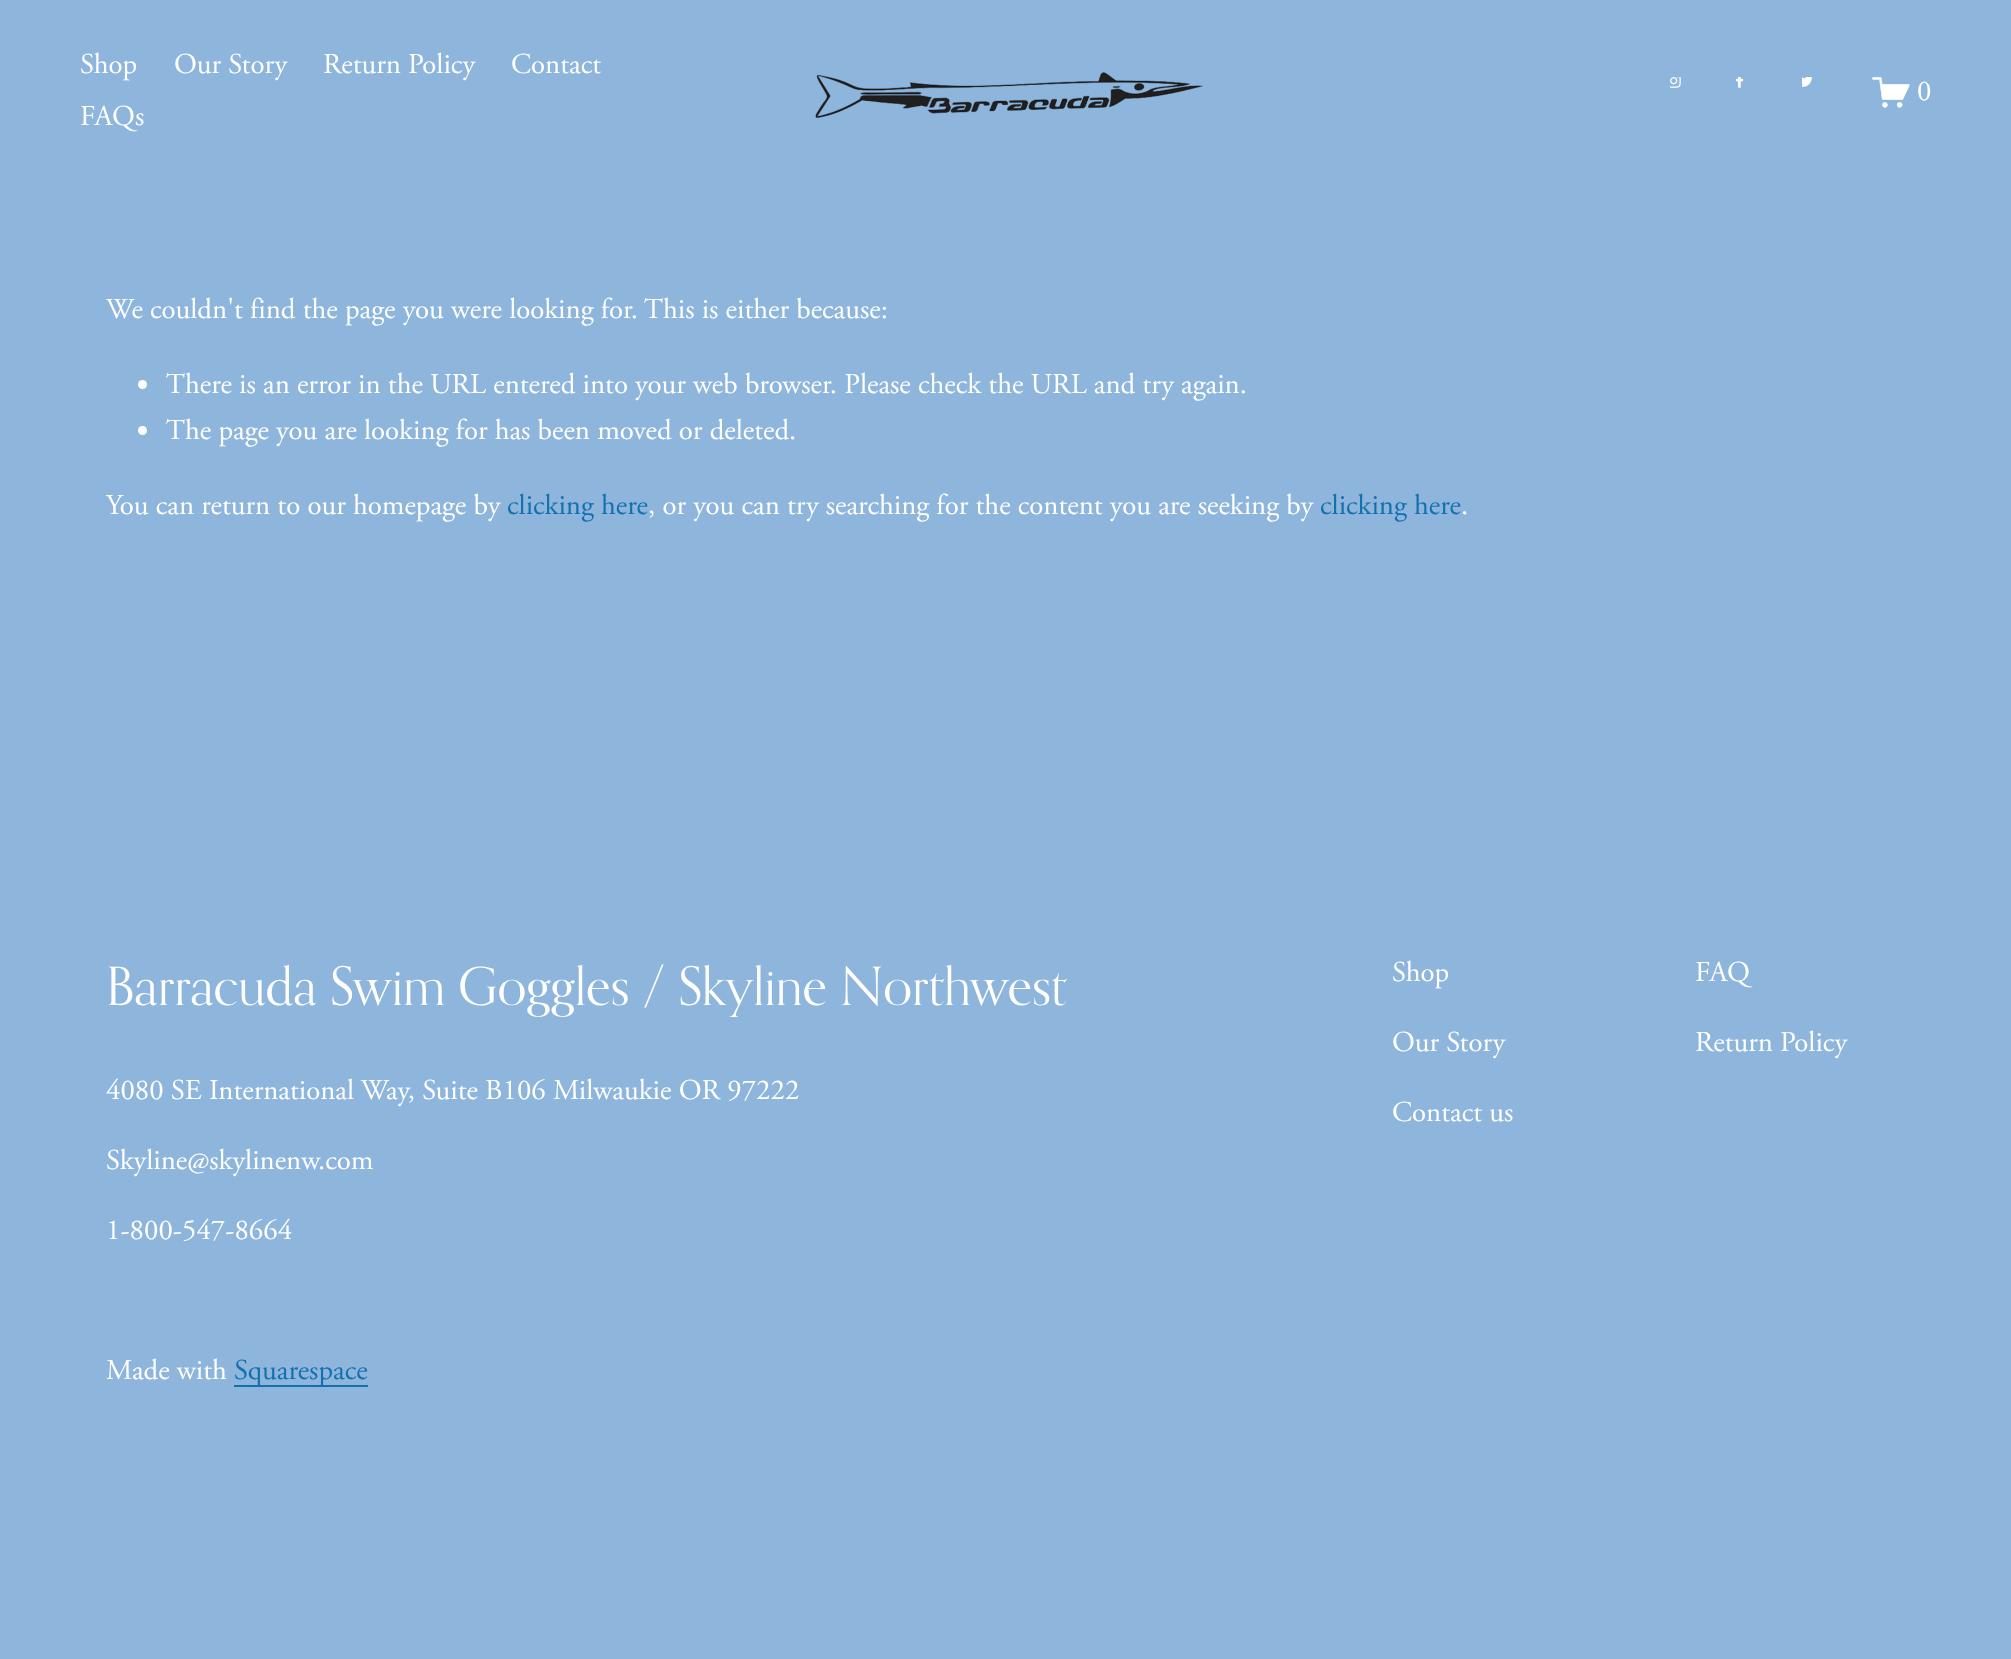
async function draw(canvas) {
  canvas.width = 2011
  canvas.height = 1659
  const ctx = canvas.getContext('2d')
  ctx.miterLimit = 4
  ctx.fontKerning = 'normal'
  async function loadImage(src) {
    const img = new Image()
    img.src = src
    await img.decode()
    return img
  }

  ctx.fillStyle = '#8eb6dc'
  ctx.fillRect(0, 0, 2011, 1659)
  ctx.font = '28.8px Adobe Garamond'
  ctx.fillStyle = '#fff'
  ctx.fillText('Shop', 80, 73)
  ctx.fillText('Our Story', 174, 73)
  ctx.fillText('Return Policy', 323, 73)
  ctx.fillText('Contact', 511, 73)
  ctx.fillText('FAQs', 80, 125)
  ctx.drawImage(await loadImage('image0.png'), 815, 72, 388, 46)
  ctx.drawImage(await loadImage('image1.png'), 1670, 77, 11, 11)
  ctx.drawImage(await loadImage('image2.png'), 1736, 77, 8, 11)
  ctx.drawImage(await loadImage('image3.png'), 1802, 77, 11, 10)
  ctx.drawImage(await loadImage('image4.png'), 1872, 77, 38, 31)
  ctx.fillText('0', 1917, 100)
  ctx.fillText('We couldn\'t find the page you were looking for. This is either because:', 106, 318)
  ctx.beginPath()
  ctx.arc(142.5, 384.5, 4.5, 0, 2 * Math.PI)
  ctx.fill()
  ctx.fillText('There is an error in the URL entered into your web browser. Please check the URL and try again.', 166, 393)
  ctx.beginPath()
  ctx.arc(142.5, 430.5, 4.5, 0, 2 * Math.PI)
  ctx.fill()
  ctx.fillText('The page you are looking for has been moved or deleted.', 166, 439)
  ctx.fillText('You can return to our homepage by', 106, 514)
  ctx.fillStyle = '#1470af'
  ctx.fillText('clicking here', 507, 514)
  ctx.fillStyle = '#fff'
  ctx.fillText(', or you can try searching for the content you are seeking by', 648, 514)
  ctx.fillStyle = '#1470af'
  ctx.fillText('clicking here', 1320, 514)
  ctx.fillStyle = '#fff'
  ctx.fillText('.', 1461, 514)
  ctx.font = '52.75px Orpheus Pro'
  ctx.fillText('Barracuda Swim Goggles / Skyline Northwest', 106, 1005)
  ctx.font = '28.8px Adobe Garamond'
  ctx.fillText('4080 SE International Way, Suite B106 Milwaukie OR 97222', 106, 1099)
  ctx.fillText('Skyline@skylinenw.com', 106, 1169)
  ctx.fillText('1-800-547-8664', 106, 1239)
  ctx.fillText('Made with', 106, 1379)
  ctx.fillStyle = '#1470af'
  ctx.fillRect(234, 1385, 134, 2)
  ctx.fillText('Squarespace', 234, 1379)
  ctx.fillStyle = '#fff'
  ctx.fillText('Shop', 1392, 981)
  ctx.fillText('Our Story', 1392, 1051)
  ctx.fillText('Contact us', 1392, 1121)
  ctx.fillText('FAQ', 1695, 981)
  ctx.fillText('Return Policy', 1695, 1051)
}

draw(document.querySelector('canvas'))
